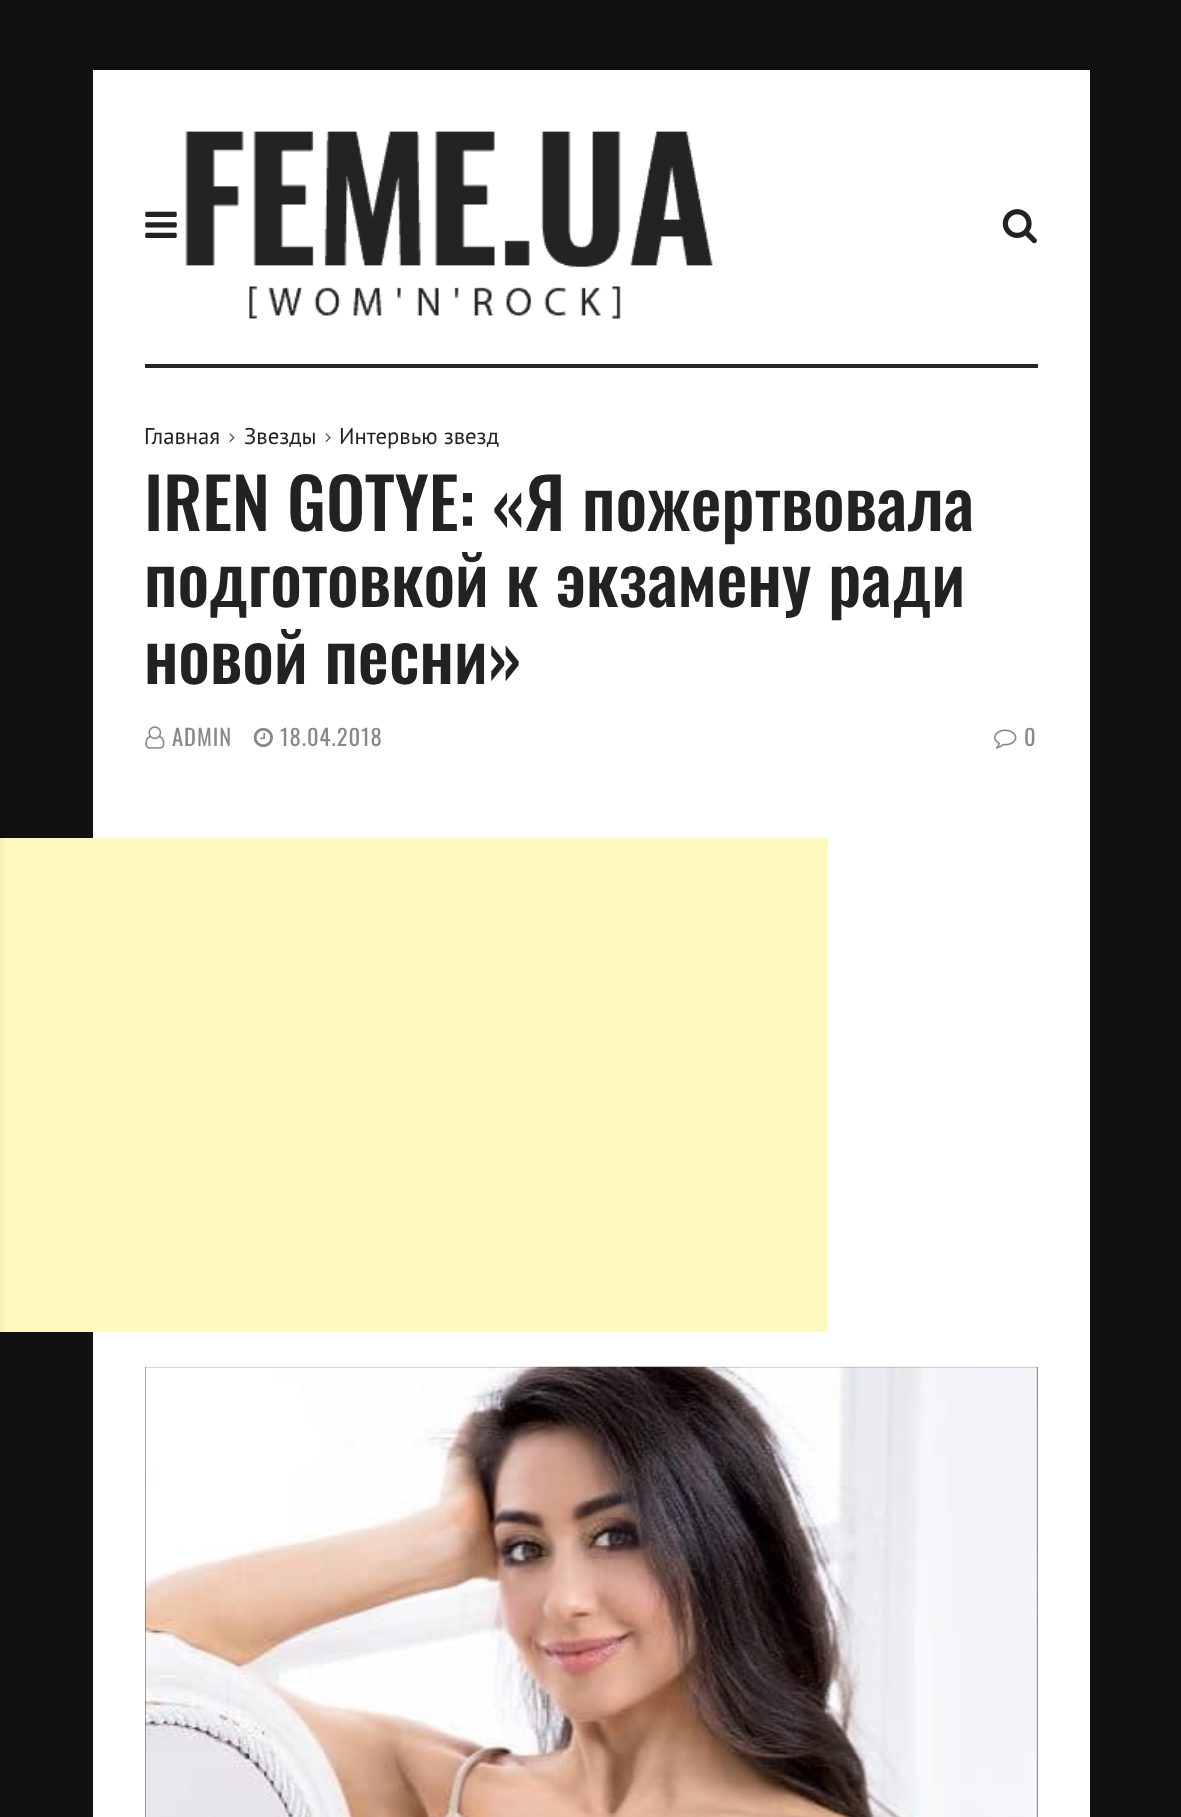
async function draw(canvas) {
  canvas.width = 1181
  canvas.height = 1817
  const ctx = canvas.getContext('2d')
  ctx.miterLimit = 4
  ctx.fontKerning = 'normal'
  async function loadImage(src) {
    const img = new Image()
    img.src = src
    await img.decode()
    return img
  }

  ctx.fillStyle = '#111'
  ctx.fillRect(0, 0, 1181, 1817)
  ctx.fillStyle = '#fff'
  ctx.fillRect(93, 70, 997, 1747)
  ctx.fillStyle = '#fff9c0'
  ctx.fillRect(0, 838, 828, 494)
  ctx.fillStyle = '#0000001a'
  ctx.filter = 'blur(4.5px)'
  ctx.beginPath()
  ctx.rect(-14, 0, 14, 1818)
  ctx.fill()
  ctx.filter = 'none'
  ctx.drawImage(await loadImage('image0.png'), 145, 211, 32, 27)
  ctx.drawImage(await loadImage('image1.png'), 185, 131, 528, 188)
  ctx.drawImage(await loadImage('image2.png'), 1002, 209, 35, 35)
  ctx.fillStyle = '#262626'
  ctx.fillRect(145, 364, 893, 4)
  ctx.font = '22.75px PT Sans'
  ctx.fillStyle = '#222'
  ctx.fillText('Главная', 144, 444)
  ctx.drawImage(await loadImage('image3.png'), 229, 433, 6, 9)
  ctx.fillText('Звезды', 244, 444)
  ctx.drawImage(await loadImage('image4.png'), 325, 433, 6, 9)
  ctx.fillText('Интервью звезд', 339, 444)
  ctx.font = '500 69.7px Oswald'
  ctx.fillText('IREN GOTYE: «Я пожертвовала', 144, 531)
  ctx.fillText('подготовкой к экзамену ради', 144, 607)
  ctx.fillText('новой песни»', 144, 684)
  ctx.drawImage(await loadImage('image5.png'), 145, 726, 20, 23)
  ctx.letterSpacing = '1px'
  ctx.font = '22.5px Oswald'
  ctx.fillStyle = '#888'
  ctx.fillText('ADMIN', 172, 746)
  ctx.drawImage(await loadImage('image6.png'), 253, 727, 20, 21)
  ctx.fillText('18.04.2018', 280, 746)
  ctx.drawImage(await loadImage('image7.png'), 994, 729, 23, 20)
  ctx.fillText('0', 1024, 746)
  ctx.fillStyle = '#222'
  ctx.fillRect(145, 1367, 893, 450)
  ctx.drawImage(await loadImage('image8.png'), 145, 1366, 893, 451)
}

draw(document.querySelector('canvas'))
